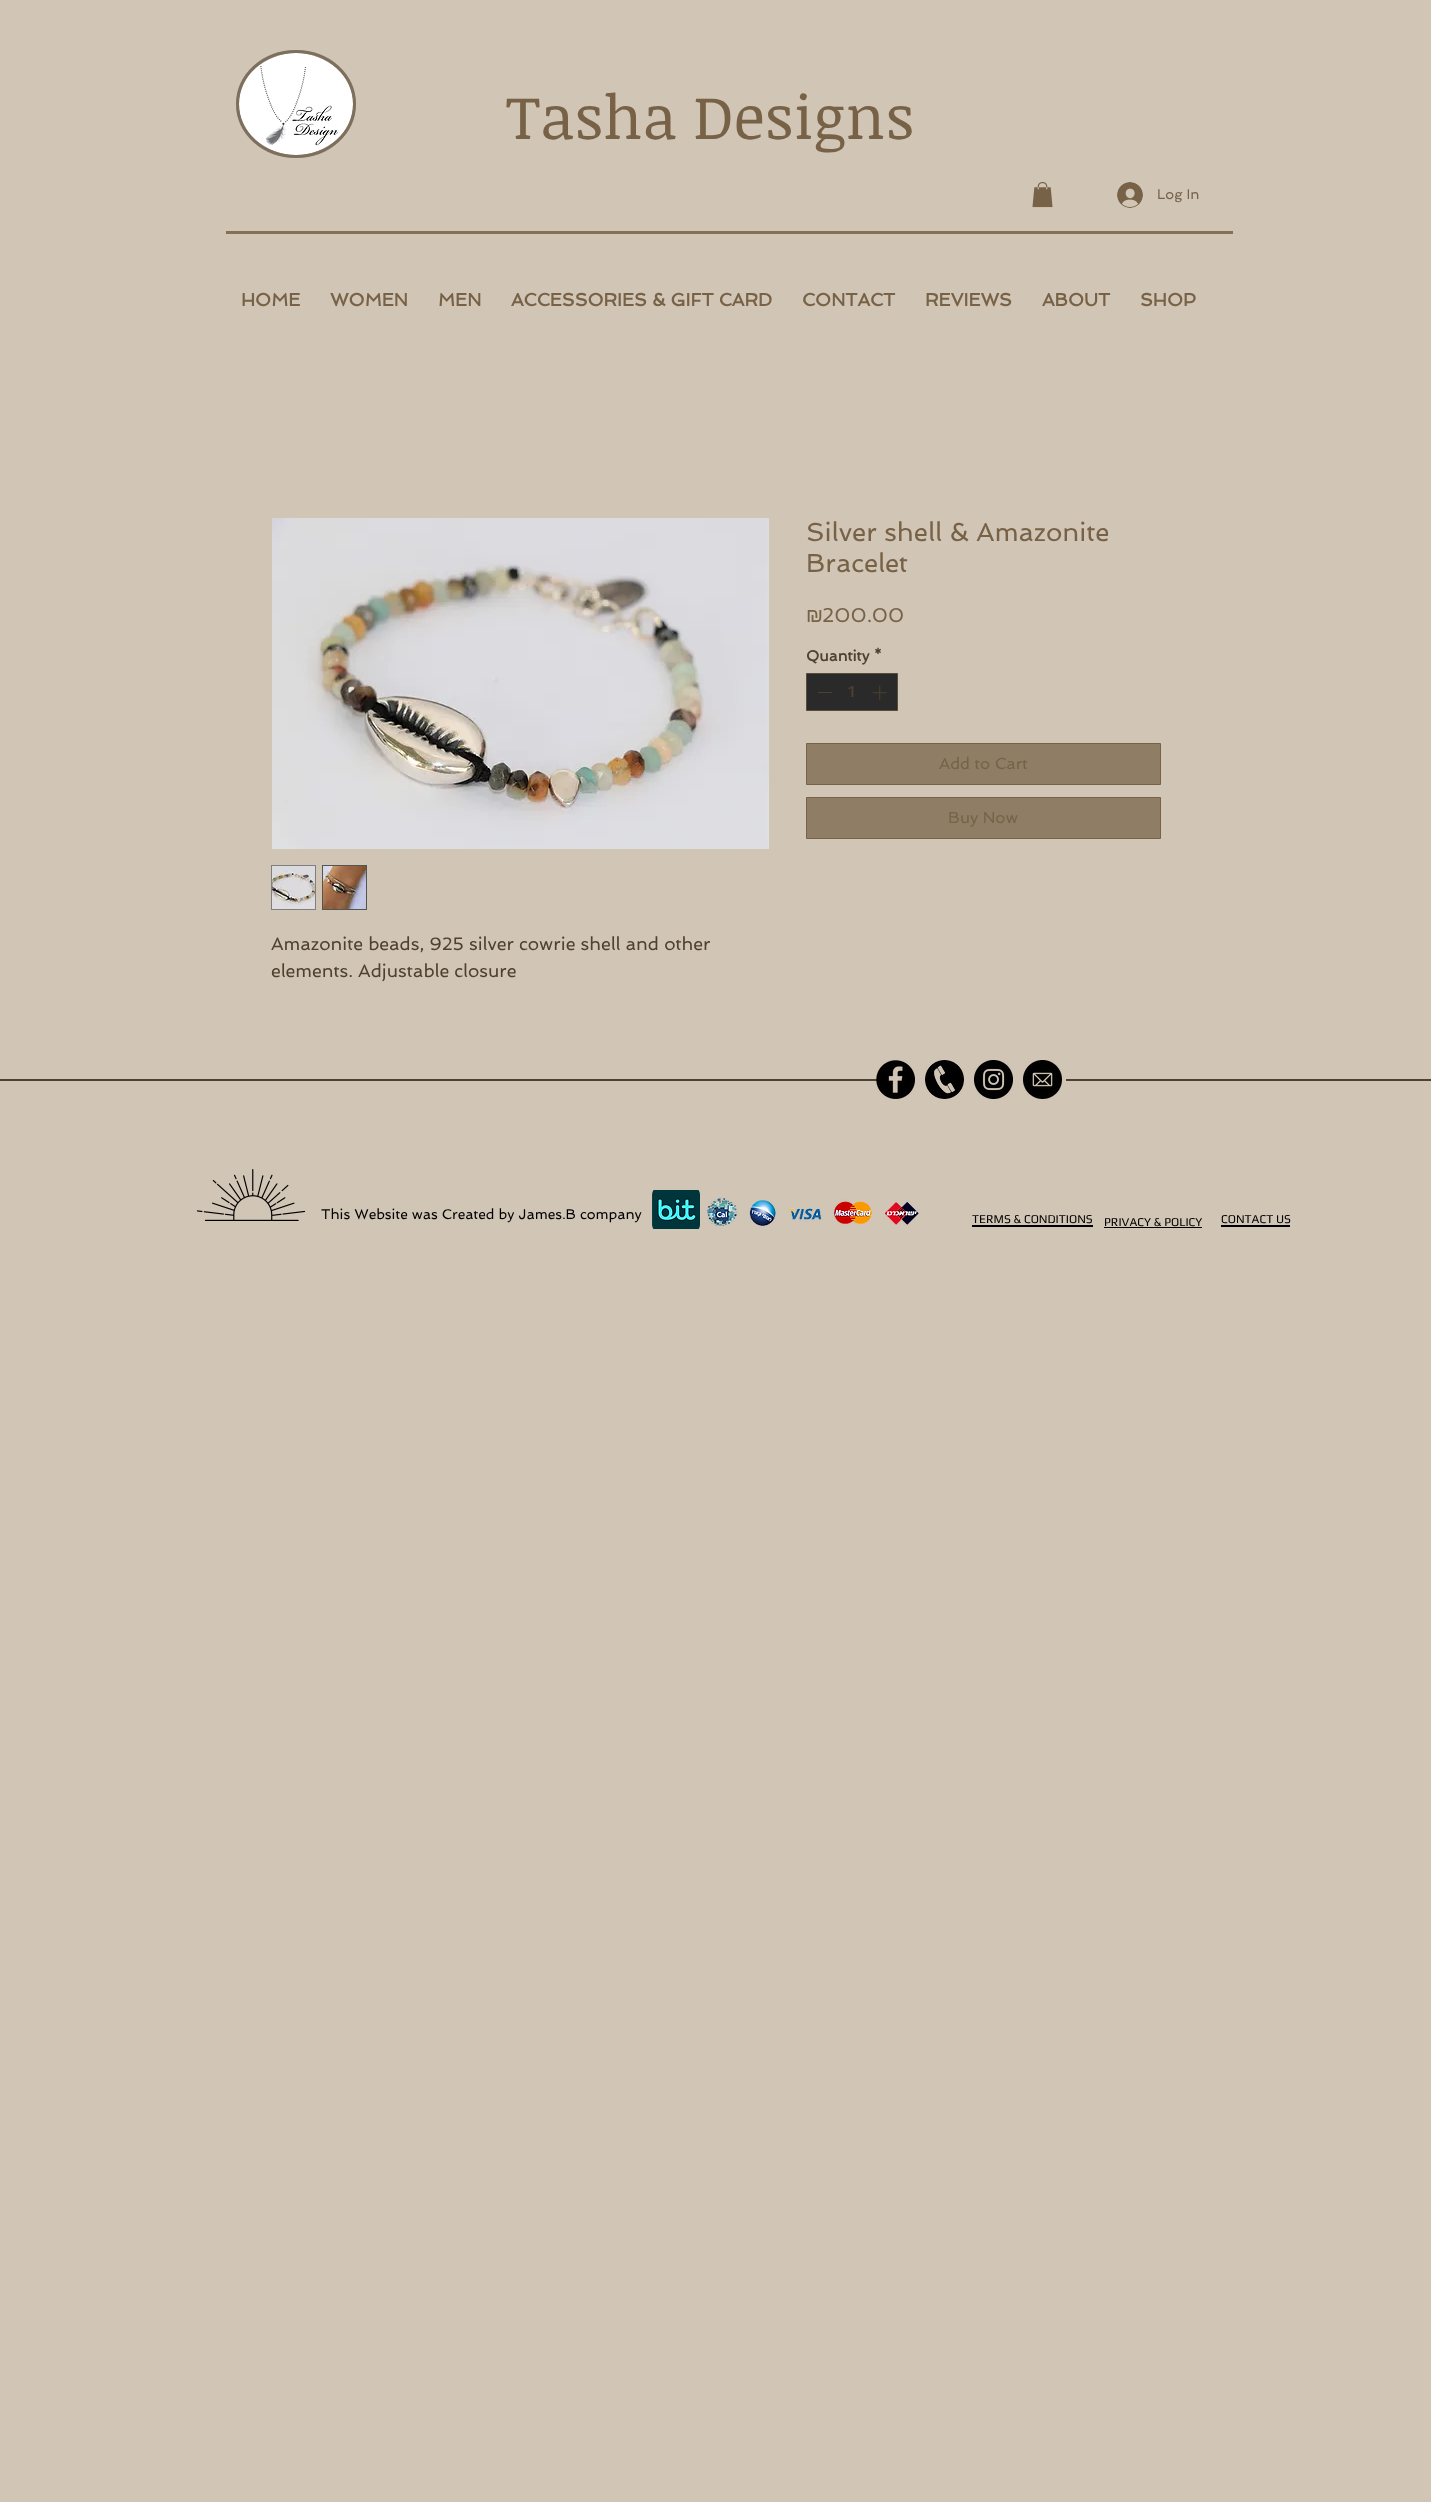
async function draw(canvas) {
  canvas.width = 1431
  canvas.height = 2502
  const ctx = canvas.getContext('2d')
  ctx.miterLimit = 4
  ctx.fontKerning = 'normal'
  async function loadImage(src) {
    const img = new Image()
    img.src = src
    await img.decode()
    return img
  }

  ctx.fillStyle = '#d1c5b5'
  ctx.fillRect(0, 0, 1431, 2502)
  ctx.fillStyle = '#9c8f7e'
  ctx.beginPath()
  ctx.ellipse(296, 104, 60, 54, 0, 0, 2 * Math.PI)
  ctx.fill()
  ctx.beginPath()
  ctx.moveTo(296, 51.5)
  ctx.bezierCurveTo(328.5, 51.5, 354.5, 75, 354.5, 104)
  ctx.bezierCurveTo(354.5, 133, 328.5, 156.5, 296, 156.5)
  ctx.bezierCurveTo(263.5, 156.5, 237.5, 133, 237.5, 104)
  ctx.bezierCurveTo(237.5, 75, 263.5, 51.5, 296, 51.5)
  ctx.closePath()
  ctx.strokeStyle = '#4f412f69'
  ctx.lineWidth = 3
  ctx.stroke()
  ctx.drawImage(await loadImage('image0.png'), 239, 53, 114, 102)
  ctx.font = '61px Noticia Text'
  ctx.fillStyle = '#776247'
  ctx.fillText('Tasha Designs', 506, 139)
  ctx.drawImage(await loadImage('image1.png'), 1032, 182, 21, 26)
  ctx.drawImage(await loadImage('image2.png'), 1117, 182, 26, 26)
  ctx.font = '14px Spinnaker'
  ctx.fillText('Log In', 1157, 199)
  ctx.fillStyle = '#847056'
  ctx.fillRect(226, 231, 1007, 3)
  ctx.font = 'bold 18px Spinnaker'
  ctx.fillStyle = '#776247'
  ctx.fillText('HOME', 241, 306)
  ctx.fillText('WOMEN', 330, 306)
  ctx.fillText('MEN', 438, 306)
  ctx.fillText('ACCESSORIES & GIFT CARD', 511, 306)
  ctx.fillText('CONTACT', 802, 306)
  ctx.fillText('REVIEWS', 925, 306)
  ctx.fillText('ABOUT', 1042, 306)
  ctx.fillText('SHOP', 1140, 306)
  ctx.font = '26px Spinnaker'
  ctx.fillText('Silver shell & Amazonite', 806, 541)
  ctx.fillText('Bracelet', 806, 572)
  ctx.font = '20px Liberation Sans'
  ctx.fillText('₪', 806, 622)
  ctx.font = '20px Spinnaker'
  ctx.fillText('200.00', 822, 622)
  ctx.font = 'bold 15px Spinnaker'
  ctx.fillStyle = '#4f412f'
  ctx.fillText('Quantity *', 806, 661)
  ctx.fillStyle = '#2a2a2a'
  ctx.beginPath()
  ctx.rect(806.5, 673.5, 91, 37)
  ctx.fill()
  ctx.strokeStyle = '#584c3b'
  ctx.lineWidth = 1
  ctx.stroke()
  ctx.fillStyle = '#4f412f'
  ctx.fillRect(818, 692, 14, 1)
  ctx.fillText('1', 848, 697)
  ctx.drawImage(await loadImage('image3.png'), 872, 685, 15, 15)
  ctx.fillStyle = '#8f7d65'
  ctx.beginPath()
  ctx.rect(806.5, 743.5, 354, 41)
  ctx.fill()
  ctx.strokeStyle = '#776247'
  ctx.stroke()
  ctx.font = '16px Spinnaker'
  ctx.fillStyle = '#776247'
  ctx.fillText('Add to Cart', 939, 769)
  ctx.fillStyle = '#8f7d65'
  ctx.beginPath()
  ctx.rect(806.5, 797.5, 354, 41)
  ctx.fill()
  ctx.stroke()
  ctx.fillStyle = '#776247'
  ctx.fillText('Buy Now', 948, 823)
  ctx.drawImage(await loadImage('image4.png'), 272, 518, 497, 331)
  ctx.strokeStyle = '#7f7f7f'
  ctx.strokeRect(271.5, 865.5, 44, 44)
  ctx.drawImage(await loadImage('image5.png'), 272, 866, 43, 43)
  ctx.fillStyle = '#545454'
  ctx.fillRect(322, 865, 45, 45)
  ctx.drawImage(await loadImage('image6.png'), 323, 866, 43, 43)
  ctx.font = '18px Spinnaker'
  ctx.fillStyle = '#4f412f'
  ctx.fillText('Amazonite beads, 925 silver cowrie shell and other', 271, 950)
  ctx.fillText('elements. Adjustable closure', 271, 977)
  ctx.fillRect(0, 1079, 886, 2)
  ctx.drawImage(await loadImage('image7.png'), 876, 1060, 39, 39)
  ctx.drawImage(await loadImage('image8.png'), 925, 1060, 39, 39)
  ctx.drawImage(await loadImage('image9.png'), 974, 1060, 39, 39)
  ctx.drawImage(await loadImage('image10.png'), 1023, 1060, 39, 39)
  ctx.fillRect(1066, 1079, 365, 2)
  ctx.drawImage(await loadImage('image11.png'), 196, 1169, 110, 52)
  ctx.font = '14px Spinnaker'
  ctx.fillStyle = '#000'
  ctx.fillText('This Website was Created by James.B company', 321, 1219)
  ctx.drawImage(await loadImage('image12.png'), 652, 1190, 48, 39)
  ctx.drawImage(await loadImage('image13.png'), 707, 1197, 212, 29)
  ctx.font = '12px Play'
  ctx.fillText('TERMS & CONDITIONS', 972, 1223)
  ctx.fillRect(972, 1225, 121, 2)
  ctx.fillText('PRIVACY & POLICY', 1104, 1226)
  ctx.fillRect(1104, 1227, 98, 1)
  ctx.fillText('CONTACT US', 1221, 1223)
  ctx.fillRect(1221, 1225, 69, 2)
}

draw(document.querySelector('canvas'))
